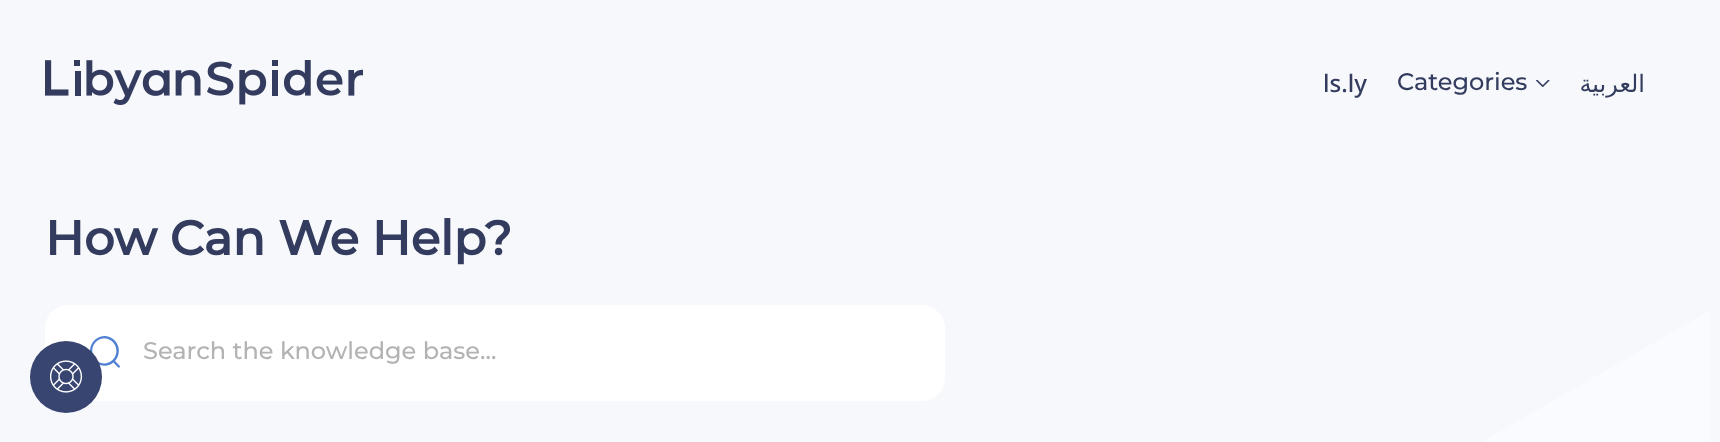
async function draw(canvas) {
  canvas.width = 1720
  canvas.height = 442
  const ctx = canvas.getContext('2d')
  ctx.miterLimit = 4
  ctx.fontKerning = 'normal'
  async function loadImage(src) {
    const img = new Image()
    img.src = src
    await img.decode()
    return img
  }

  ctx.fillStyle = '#f6f8fb'
  ctx.fillRect(0, 0, 1720, 442)
  ctx.drawImage(await loadImage('image0.png'), 1483, 311, 227, 131)
  ctx.drawImage(await loadImage('image1.png'), 45, 60, 318, 45)
  ctx.font = '500 24px Noto Sans'
  ctx.fillStyle = '#333c5e'
  ctx.fillText('ls.ly', 1323, 92)
  ctx.font = '100 24px Montserrat'
  ctx.fillText('Categories', 1397, 90)
  ctx.drawImage(await loadImage('image2.png'), 1536, 80, 14, 7)
  ctx.direction = 'rtl'
  ctx.font = '24px DejaVu Sans'
  ctx.fillText('العربية', 1645, 92)
  ctx.direction = 'ltr'
  ctx.font = 'bold 48px Montserrat'
  ctx.fillText('How Can We Help?', 45, 255)
  ctx.fillStyle = '#fff'
  ctx.beginPath()
  ctx.roundRect(45, 305, 900, 96, 23)
  ctx.fill()
  ctx.drawImage(await loadImage('image3.png'), 90, 336, 30, 32)
  ctx.font = '100 24px Montserrat'
  ctx.fillStyle = '#b3b3b3'
  ctx.fillText('Search the knowledge base...', 143, 359)
  ctx.fillStyle = '#384571'
  ctx.beginPath()
  ctx.arc(66, 377, 36, 0, 2 * Math.PI)
  ctx.fill()
  ctx.drawImage(await loadImage('image4.png'), 50, 360, 33, 33)
}

draw(document.querySelector('canvas'))
